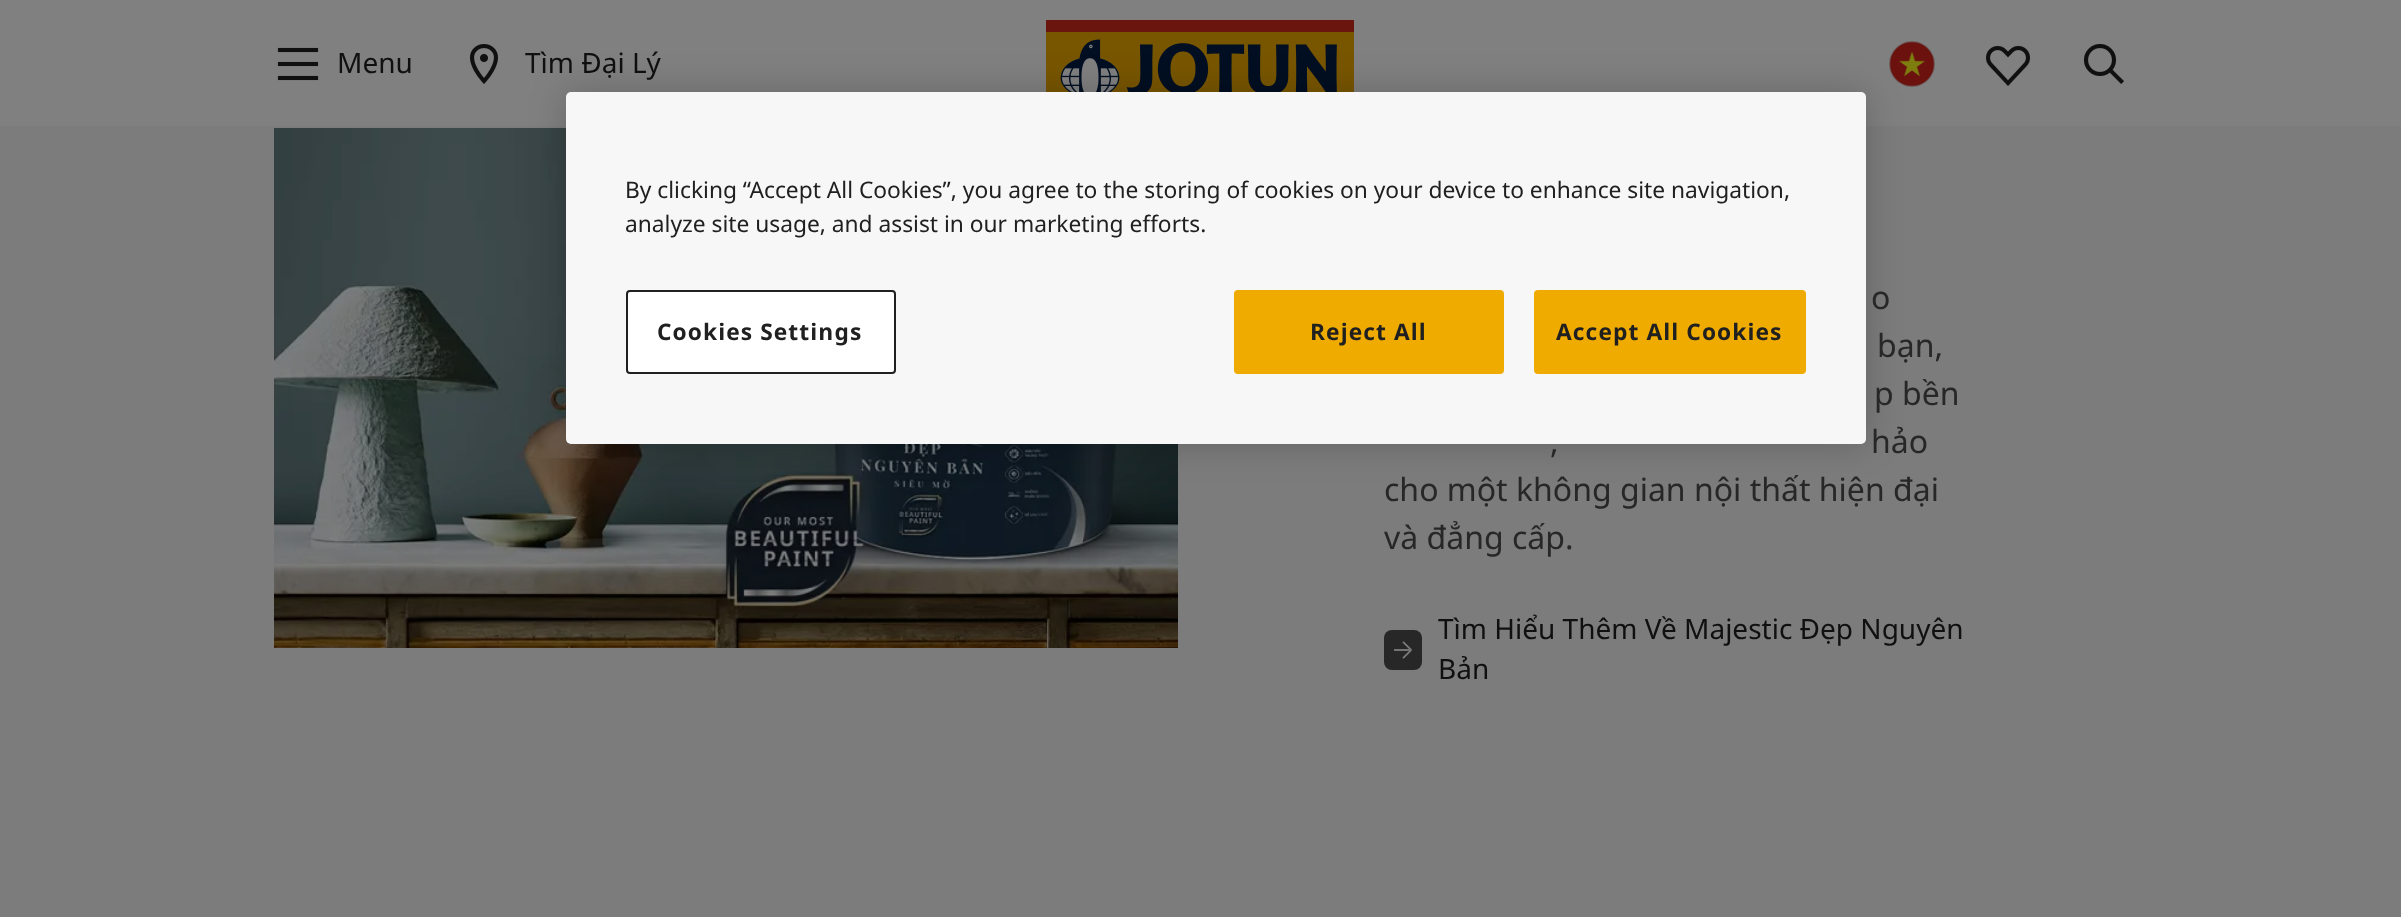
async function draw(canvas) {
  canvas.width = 2401
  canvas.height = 917
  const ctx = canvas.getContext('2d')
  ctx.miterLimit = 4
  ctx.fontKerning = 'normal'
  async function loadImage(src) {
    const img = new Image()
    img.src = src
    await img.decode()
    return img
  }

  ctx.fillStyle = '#7c7c7c'
  ctx.fillRect(0, 0, 2401, 917)
  ctx.fillStyle = '#808080'
  ctx.fillRect(0, 0, 2401, 126)
  ctx.drawImage(await loadImage('image0.png'), 277, 47, 42, 34)
  ctx.font = '28px Noto Sans'
  ctx.fillStyle = '#101010'
  ctx.fillText('Menu', 337, 73)
  ctx.drawImage(await loadImage('image1.png'), 469, 44, 30, 40)
  ctx.fillText('Tìm Đại Lý', 525, 73)
  ctx.drawImage(await loadImage('image2.png'), 1046, 20, 308, 72)
  ctx.drawImage(await loadImage('image3.png'), 1889, 41, 46, 46)
  ctx.drawImage(await loadImage('image4.png'), 1985, 45, 45, 41)
  ctx.drawImage(await loadImage('image5.png'), 2083, 43, 41, 41)
  ctx.drawImage(await loadImage('image6.png'), 274, 128, 904, 520)
  ctx.fillStyle = '#00000033'
  ctx.filter = 'blur(18px)'
  ctx.beginPath()
  ctx.roundRect(566, 92, 1300, 352, 5)
  ctx.fill()
  ctx.filter = 'none'
  ctx.fillStyle = '#f7f7f7'
  ctx.beginPath()
  ctx.roundRect(566, 92, 1300, 352, 5)
  ctx.fill()
  ctx.font = '22.75px Noto Sans'
  ctx.fillStyle = '#202020'
  ctx.fillText('By clicking “Accept All Cookies”, you agree to the storing of cookies on your device to enhance site navigation,', 625, 198)
  ctx.fillText('analyze site usage, and assist in our marketing efforts.', 625, 232)
  ctx.fillStyle = '#fff'
  ctx.beginPath()
  ctx.roundRect(627, 291, 268, 82, 3)
  ctx.fill()
  ctx.strokeStyle = '#202020'
  ctx.lineWidth = 2
  ctx.stroke()
  ctx.letterSpacing = '1.1px'
  ctx.font = 'bold 22.75px Noto Sans'
  ctx.fillStyle = '#202020'
  ctx.fillText('Cookies Settings', 657, 340)
  ctx.fillStyle = '#f0ab00'
  ctx.beginPath()
  ctx.roundRect(1235, 291, 268, 82, 3)
  ctx.fill()
  ctx.strokeStyle = '#f0ab00'
  ctx.stroke()
  ctx.fillStyle = '#202020'
  ctx.fillText('Reject All', 1310, 340)
  ctx.fillStyle = '#f0ab00'
  ctx.beginPath()
  ctx.roundRect(1535, 291, 270, 82, 3)
  ctx.fill()
  ctx.stroke()
  ctx.fillStyle = '#202020'
  ctx.fillText('Accept All Cookies', 1556, 340)
  ctx.letterSpacing = '0px'
  ctx.font = '32px Noto Sans'
  ctx.fillStyle = '#272727'
  ctx.fillText('o', 1871, 309)
  ctx.fillText('bạn,', 1877, 357)
  ctx.fillText('p bền', 1874, 405)
  ctx.fillText(',', 1550, 453)
  ctx.fillText('hảo', 1871, 453)
  ctx.fillText('cho một không gian nội thất hiện đại', 1384, 501)
  ctx.fillText('và đẳng cấp.', 1384, 549)
  ctx.beginPath()
  ctx.roundRect(1384, 630, 38, 40, 8)
  ctx.fill()
  ctx.drawImage(await loadImage('image7.png'), 1393, 641, 20, 18)
  ctx.font = '28px Noto Sans'
  ctx.fillStyle = '#101010'
  ctx.fillText('Tìm Hiểu Thêm Về Majestic Đẹp Nguyên', 1438, 639)
  ctx.fillText('Bản', 1438, 679)
}

draw(document.querySelector('canvas'))
